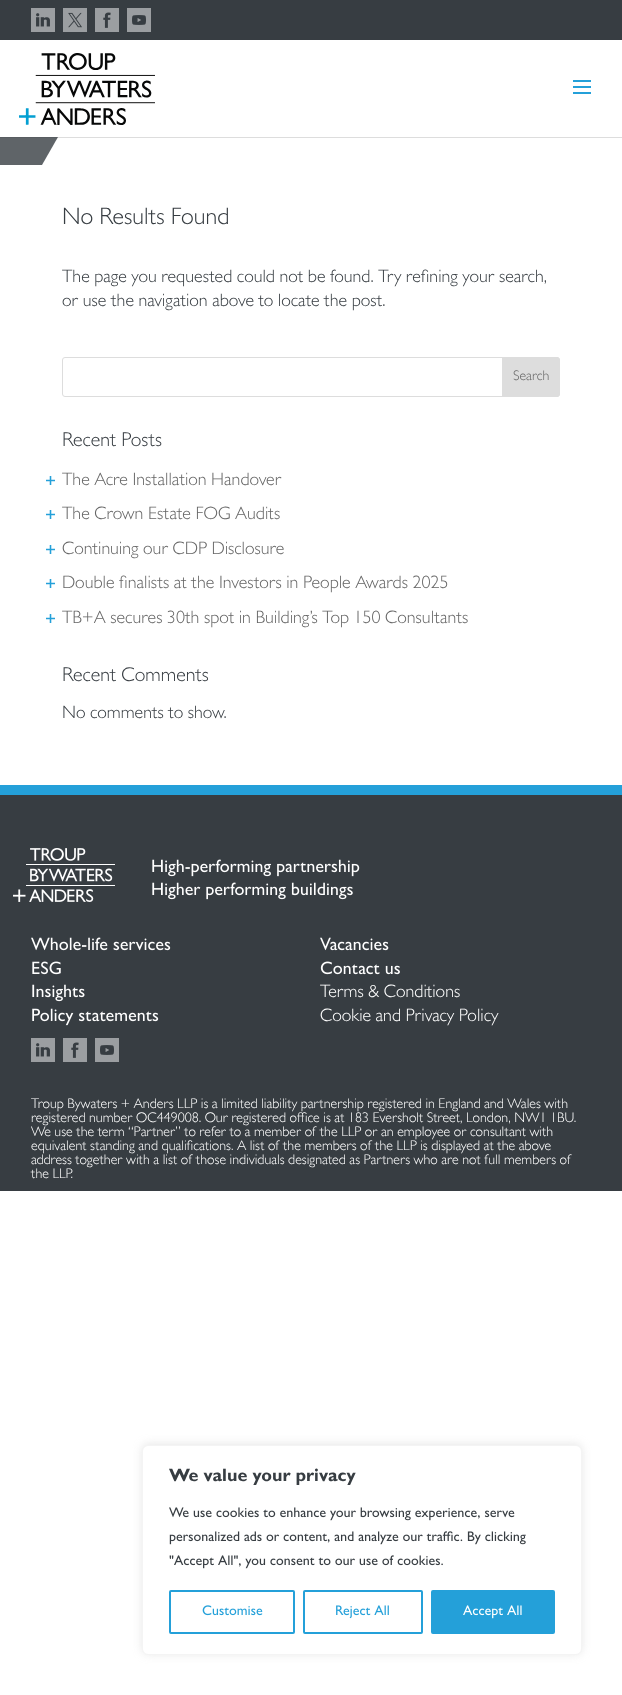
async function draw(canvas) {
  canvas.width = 622
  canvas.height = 1695
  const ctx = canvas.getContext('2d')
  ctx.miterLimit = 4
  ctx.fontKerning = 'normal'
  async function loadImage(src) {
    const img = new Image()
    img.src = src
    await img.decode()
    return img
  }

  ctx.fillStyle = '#fff'
  ctx.fillRect(0, 0, 622, 1695)
  ctx.fillStyle = '#373d42'
  ctx.fillRect(0, 0, 622, 40)
  ctx.drawImage(await loadImage('image0.png'), 31, 8, 24, 24)
  ctx.drawImage(await loadImage('image1.png'), 63, 8, 24, 24)
  ctx.drawImage(await loadImage('image2.png'), 95, 8, 24, 24)
  ctx.drawImage(await loadImage('image3.png'), 127, 8, 24, 24)
  ctx.fillStyle = '#ddd'
  ctx.fillRect(0, 137, 622, 1)
  ctx.drawImage(await loadImage('image4.png'), 19, 53, 136, 72)
  ctx.fillStyle = '#24a0d9'
  ctx.fillRect(573, 80, 18, 2)
  ctx.fillRect(573, 86, 18, 2)
  ctx.fillRect(573, 92, 18, 2)
  ctx.fillStyle = '#373d42cc'
  ctx.beginPath()
  ctx.moveTo(-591, 137)
  ctx.lineTo(58, 137)
  ctx.lineTo(42, 165)
  ctx.lineTo(-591, 165)
  ctx.closePath()
  ctx.fill()
  ctx.font = '300 24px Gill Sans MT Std'
  ctx.fillStyle = '#373d42'
  ctx.fillText('No Results Found', 62, 224)
  ctx.font = '300 18px Gill Sans MT Std'
  ctx.fillText('The page you requested could not be found. Try refining your search,', 62, 282)
  ctx.fillText('or use the navigation above to locate the post.', 62, 306)
  ctx.beginPath()
  ctx.roundRect(62.5, 357.5, 497, 39, 2.5)
  ctx.strokeStyle = '#ddd'
  ctx.stroke()
  ctx.fillStyle = '#ddd'
  ctx.beginPath()
  ctx.roundRect(502.5, 357.5, 57, 39, [0, 2.5, 2.5, 0])
  ctx.fill()
  ctx.stroke()
  ctx.font = '300 14px Gill Sans MT Std'
  ctx.fillStyle = '#666'
  ctx.fillText('Search', 513, 380)
  ctx.font = '300 20px Gill Sans MT Std'
  ctx.fillStyle = '#373d42'
  ctx.fillText('Recent Posts', 62, 446)
  ctx.drawImage(await loadImage('image5.png'), 46, 476, 9, 9)
  ctx.font = '300 18px Gill Sans MT Std'
  ctx.fillStyle = '#666'
  ctx.fillText('The Acre Installation Handover', 62, 485)
  ctx.drawImage(await loadImage('image5.png'), 46, 510, 9, 9)
  ctx.fillText('The Crown Estate FOG Audits', 62, 519)
  ctx.drawImage(await loadImage('image5.png'), 46, 545, 9, 9)
  ctx.fillText('Continuing our CDP Disclosure', 62, 554)
  ctx.drawImage(await loadImage('image5.png'), 46, 579, 9, 9)
  ctx.fillText('Double finalists at the Investors in People Awards 2025', 62, 588)
  ctx.drawImage(await loadImage('image5.png'), 46, 614, 9, 9)
  ctx.fillText('TB+A secures 30th spot in Building’s Top 150 Consultants', 62, 623)
  ctx.font = '300 20px Gill Sans MT Std'
  ctx.fillStyle = '#373d42'
  ctx.fillText('Recent Comments', 62, 681)
  ctx.font = '300 18px Gill Sans MT Std'
  ctx.fillText('No comments to show.', 62, 718)
  ctx.fillRect(0, 795, 622, 396)
  ctx.fillStyle = '#24a0d9'
  ctx.fillRect(0, 785, 622, 10)
  ctx.drawImage(await loadImage('image6.png'), 13, 848, 102, 54)
  ctx.drawImage(await loadImage('image7.png'), 152, 859, 208, 18)
  ctx.drawImage(await loadImage('image8.png'), 152, 882, 201, 18)
  ctx.drawImage(await loadImage('image9.png'), 31, 937, 140, 14)
  ctx.drawImage(await loadImage('image10.png'), 320, 937, 69, 14)
  ctx.drawImage(await loadImage('image11.png'), 32, 961, 29, 14)
  ctx.drawImage(await loadImage('image12.png'), 320, 961, 80, 14)
  ctx.drawImage(await loadImage('image13.png'), 32, 984, 53, 18)
  ctx.fillStyle = '#fff'
  ctx.fillText('Terms & Conditions', 320, 997)
  ctx.drawImage(await loadImage('image14.png'), 32, 1008, 127, 18)
  ctx.fillText('Cookie and Privacy Policy', 320, 1021)
  ctx.drawImage(await loadImage('image0.png'), 31, 1038, 24, 24)
  ctx.drawImage(await loadImage('image2.png'), 63, 1038, 24, 24)
  ctx.drawImage(await loadImage('image3.png'), 95, 1038, 24, 24)
  ctx.font = '300 14px Gill Sans MT Std'
  ctx.fillText('Troup Bywaters + Anders LLP is a limited liability partnership registered in England and Wales with', 31, 1108)
  ctx.fillText('registered number OC449008. Our registered office is at 183 Eversholt Street, London, NW1 1BU.', 31, 1122)
  ctx.fillText('We use the term “Partner” to refer to a member of the LLP or an employee or consultant with', 31, 1136)
  ctx.fillText('equivalent standing and qualifications. A list of the members of the LLP is displayed at the above', 31, 1150)
  ctx.fillText('address together with a list of those individuals designated as Partners who are not full members of', 31, 1164)
  ctx.fillText('the LLP.', 31, 1178)
  ctx.fillStyle = '#acabab4d'
  ctx.filter = 'blur(5px)'
  ctx.beginPath()
  ctx.roundRect(142, 1444, 440, 210, 6)
  ctx.fill()
  ctx.filter = 'none'
  ctx.fillStyle = '#fff'
  ctx.beginPath()
  ctx.roundRect(142.5, 1445.5, 439, 209, 5.5)
  ctx.fill()
  ctx.strokeStyle = '#f4f4f4'
  ctx.stroke()
  ctx.font = 'bold 18px Gill Sans MT Std'
  ctx.fillStyle = '#373d42'
  ctx.fillText('We value your privacy', 169, 1481)
  ctx.drawImage(await loadImage('image15.png'), 169, 1507, 346, 14)
  ctx.drawImage(await loadImage('image16.png'), 169, 1531, 357, 14)
  ctx.drawImage(await loadImage('image17.png'), 169, 1555, 274, 14)
  ctx.beginPath()
  ctx.roundRect(170, 1591, 124, 42, 1)
  ctx.strokeStyle = '#24a0d9'
  ctx.lineWidth = 2
  ctx.stroke()
  ctx.drawImage(await loadImage('image18.png'), 202, 1605, 61, 11)
  ctx.beginPath()
  ctx.roundRect(304, 1591, 118, 42, 1)
  ctx.stroke()
  ctx.drawImage(await loadImage('image19.png'), 336, 1605, 53, 14)
  ctx.fillStyle = '#24a0d9'
  ctx.beginPath()
  ctx.roundRect(432, 1591, 122, 42, 1)
  ctx.fill()
  ctx.stroke()
  ctx.drawImage(await loadImage('image20.png'), 463, 1605, 59, 14)
}

draw(document.querySelector('canvas'))
